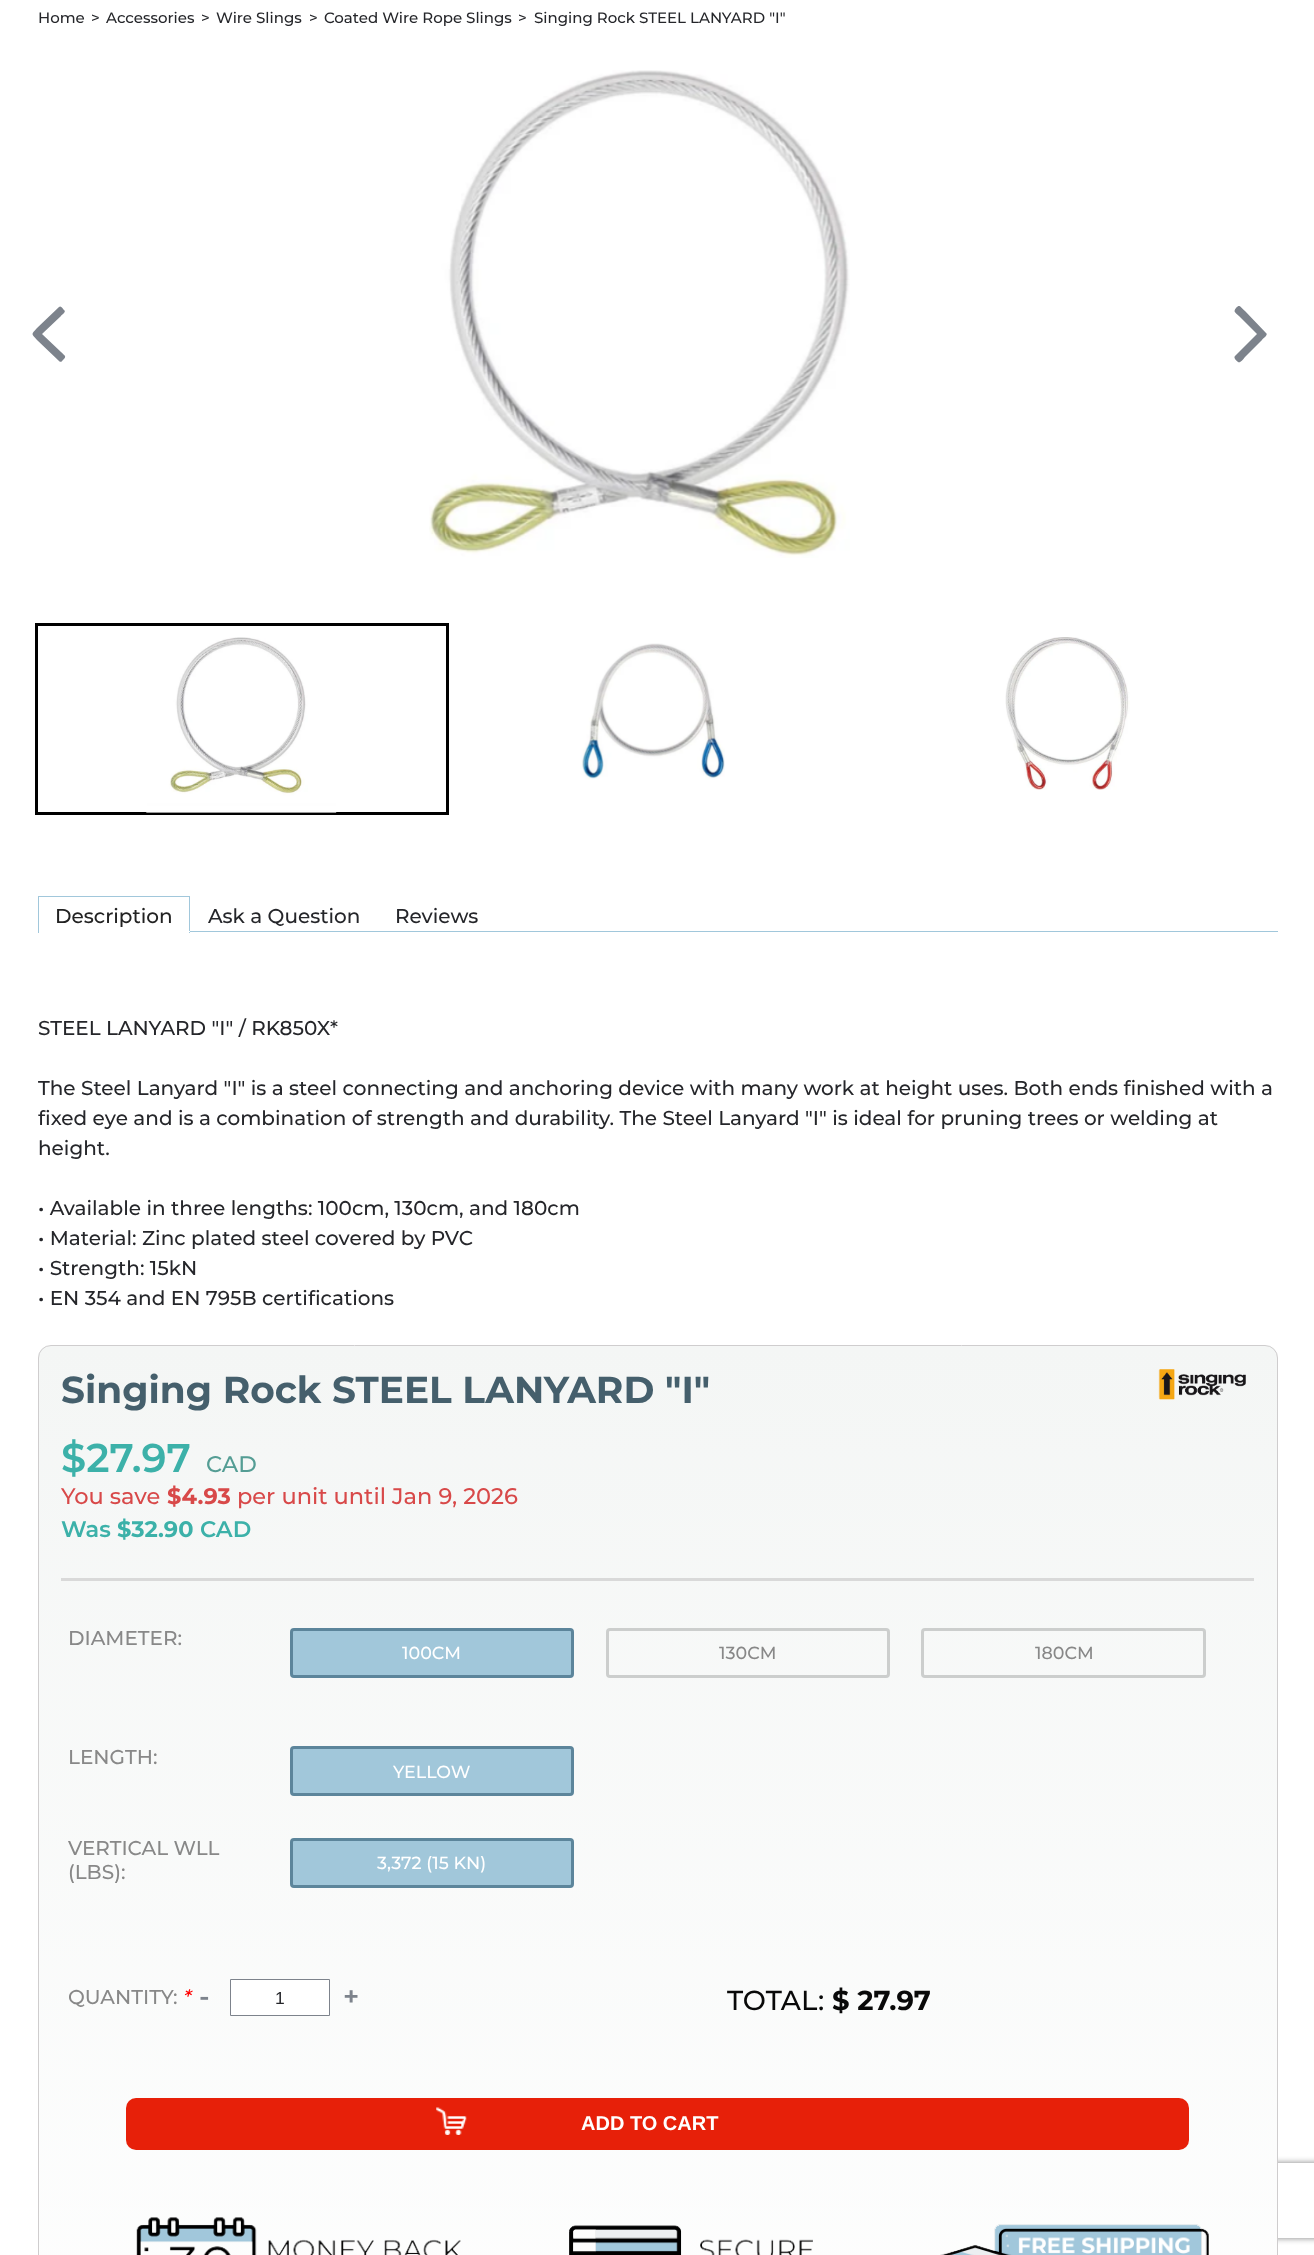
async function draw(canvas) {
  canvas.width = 1314
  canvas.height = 2255
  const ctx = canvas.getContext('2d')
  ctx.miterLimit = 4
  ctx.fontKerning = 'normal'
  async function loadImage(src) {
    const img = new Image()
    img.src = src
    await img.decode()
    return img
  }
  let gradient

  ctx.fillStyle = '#fff'
  ctx.fillRect(0, 0, 1314, 2255)
  ctx.font = '500 15px Montserrat'
  ctx.fillStyle = '#25262a'
  ctx.fillText('Home', 38, 23)
  ctx.fillText('>', 91, 23)
  ctx.fillText('Accessories', 106, 23)
  ctx.fillText('>', 201, 23)
  ctx.fillText('Wire Slings', 216, 23)
  ctx.fillText('>', 309, 23)
  ctx.fillText('Coated Wire Rope Slings', 324, 23)
  ctx.fillText('>', 518, 23)
  ctx.fillText('Singing Rock STEEL LANYARD "I"', 534, 23)
  ctx.fillStyle = '#7d838c'
  ctx.beginPath()
  ctx.moveTo(64, 310)
  ctx.bezierCurveTo(67, 312, 61, 315, 61, 316)
  ctx.lineTo(42, 334)
  ctx.lineTo(61, 352)
  ctx.bezierCurveTo(65, 356, 67, 356, 63, 360)
  ctx.bezierCurveTo(62, 361, 61, 363, 59, 361)
  ctx.lineTo(37, 340)
  ctx.bezierCurveTo(31, 333, 31, 335, 37, 328)
  ctx.lineTo(59, 307)
  ctx.bezierCurveTo(61, 305, 63, 309, 64, 310)
  ctx.closePath()
  ctx.fill()
  ctx.drawImage(await loadImage('image0.png'), 429, 70, 421, 488)
  ctx.beginPath()
  ctx.moveTo(1266, 333)
  ctx.bezierCurveTo(1269, 335, 1262, 339, 1262, 340)
  ctx.lineTo(1245, 357)
  ctx.bezierCurveTo(1245, 357, 1240, 364, 1238, 362)
  ctx.bezierCurveTo(1237, 361, 1233, 358, 1235, 356)
  ctx.lineTo(1257, 334)
  ctx.lineTo(1239, 316)
  ctx.bezierCurveTo(1235, 312, 1233, 312, 1236, 308)
  ctx.bezierCurveTo(1240, 304, 1240, 307, 1245, 311)
  ctx.closePath()
  ctx.fill()
  ctx.strokeStyle = '#000'
  ctx.lineWidth = 3
  ctx.strokeRect(36.5, 624.5, 411, 189)
  ctx.drawImage(await loadImage('image1.png'), 145, 637, 192, 176)
  ctx.drawImage(await loadImage('image2.png'), 580, 643, 145, 137)
  ctx.drawImage(await loadImage('image3.png'), 1005, 637, 125, 153)
  ctx.fillStyle = '#a1c7db'
  ctx.fillRect(38, 896, 152, 1)
  ctx.fillRect(189, 896, 1, 37)
  ctx.fillStyle = '#fff'
  ctx.fillRect(189, 931, 1, 1)
  ctx.fillStyle = '#a1c7db'
  ctx.fillRect(38, 896, 1, 37)
  ctx.font = '500 20px Montserrat'
  ctx.fillStyle = '#222'
  ctx.fillText('Description', 55, 923)
  ctx.fillStyle = '#25262a'
  ctx.fillText('Ask a Question', 208, 923)
  ctx.fillText('Reviews', 395, 923)
  ctx.fillStyle = '#a1c7db'
  ctx.fillRect(190, 931, 1088, 1)
  ctx.fillStyle = '#25262a'
  ctx.fillText('STEEL LANYARD "I" / RK850X*', 38, 1035)
  ctx.fillText('The Steel Lanyard "I" is a steel connecting and anchoring device with many work at height uses. Both ends finished with a', 38, 1095)
  ctx.fillText('fixed eye and is a combination of strength and durability. The Steel Lanyard "I" is ideal for pruning trees or welding at', 38, 1125)
  ctx.fillText('height.', 38, 1155)
  ctx.fillText('• Available in three lengths: 100cm, 130cm, and 180cm', 38, 1215)
  ctx.fillText('• Material: Zinc plated steel covered by PVC', 38, 1245)
  ctx.fillText('• Strength: 15kN', 38, 1275)
  ctx.fillText('• EN 354 and EN 795B certifications', 38, 1305)
  ctx.save()
  ctx.beginPath()
  ctx.moveTo(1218, 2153)
  ctx.lineTo(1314, 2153)
  ctx.lineTo(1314, 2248)
  ctx.lineTo(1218, 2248)
  ctx.closePath()
  ctx.moveTo(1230.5, 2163)
  ctx.lineTo(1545.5, 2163)
  ctx.bezierCurveTo(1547, 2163, 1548, 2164, 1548, 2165.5)
  ctx.lineTo(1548, 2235.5)
  ctx.bezierCurveTo(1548, 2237, 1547, 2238, 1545.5, 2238)
  ctx.lineTo(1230.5, 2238)
  ctx.bezierCurveTo(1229, 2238, 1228, 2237, 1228, 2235.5)
  ctx.lineTo(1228, 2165.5)
  ctx.bezierCurveTo(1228, 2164, 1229, 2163, 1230.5, 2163)
  ctx.closePath()
  ctx.clip('evenodd')
  ctx.fillStyle = '#808080'
  ctx.filter = 'blur(3px)'
  ctx.beginPath()
  ctx.roundRect(1228, 2163, 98, 75, 2.5)
  ctx.fill()
  ctx.filter = 'none'
  ctx.restore()
  ctx.save()
  ctx.beginPath()
  ctx.roundRect(38, 1345, 1240, 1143, 13)
  ctx.clip()
  gradient = ctx.createLinearGradient(658, 1346, 658, 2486)
  gradient.addColorStop(0, '#f4f6f5')
  gradient.addColorStop(1, '#fff')
  ctx.fillStyle = gradient
  ctx.fillRect(38, 1346, 1240, 909)
  ctx.restore()
  ctx.beginPath()
  ctx.roundRect(38.5, 1345.5, 1239, 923, 12.5)
  ctx.strokeStyle = '#cfcdce'
  ctx.lineWidth = 1
  ctx.stroke()
  ctx.font = 'bold 37.5px Montserrat'
  ctx.fillStyle = '#455f6c'
  ctx.fillText('Singing Rock STEEL LANYARD "I"', 61, 1403)
  ctx.drawImage(await loadImage('image4.png'), 1158, 1369, 88, 31)
  ctx.fillStyle = '#d9d9d9'
  ctx.fillRect(61, 1578, 1193, 3)
  ctx.font = '600 40px Montserrat'
  ctx.fillStyle = '#3cb1a9'
  ctx.fillText('$27.97', 61, 1472)
  ctx.font = '500 22.5px Montserrat'
  ctx.fillStyle = '#549d94'
  ctx.fillText('CAD', 206, 1472)
  ctx.fillStyle = '#d84949'
  ctx.fillText('You save', 61, 1504)
  ctx.font = 'bold 22.5px Montserrat'
  ctx.fillText('$4.93', 167, 1504)
  ctx.font = '500 22.5px Montserrat'
  ctx.fillText('per unit until Jan 9, 2026', 237, 1504)
  ctx.font = '600 22.5px Montserrat'
  ctx.fillStyle = '#3cb1a9'
  ctx.fillText('Was', 61, 1537)
  ctx.font = 'bold 22.5px Montserrat'
  ctx.fillText('$32.90', 117, 1537)
  ctx.font = '600 22.5px Montserrat'
  ctx.fillText('CAD', 200, 1537)
  ctx.font = '500 20px Montserrat'
  ctx.fillStyle = '#888'
  ctx.fillText('DIAMETER:', 68, 1645)
  ctx.fillStyle = '#a1c7da'
  ctx.beginPath()
  ctx.roundRect(291.5, 1629.5, 281, 47, 2.5)
  ctx.fill()
  ctx.strokeStyle = '#5c859b'
  ctx.lineWidth = 3
  ctx.stroke()
  ctx.font = '500 17.5px Montserrat'
  ctx.fillStyle = '#fff'
  ctx.fillText('100CM', 402, 1659)
  ctx.beginPath()
  ctx.roundRect(607.5, 1629.5, 281, 47, 2.5)
  ctx.strokeStyle = '#cccecd'
  ctx.stroke()
  ctx.fillStyle = '#888'
  ctx.fillText('130CM', 719, 1659)
  ctx.beginPath()
  ctx.roundRect(922.5, 1629.5, 282, 47, 2.5)
  ctx.stroke()
  ctx.fillText('180CM', 1035, 1659)
  ctx.font = '500 20px Montserrat'
  ctx.fillText('LENGTH:', 68, 1764)
  ctx.fillStyle = '#a1c7da'
  ctx.beginPath()
  ctx.roundRect(291.5, 1747.5, 281, 47, 2.5)
  ctx.fill()
  ctx.strokeStyle = '#5c859b'
  ctx.stroke()
  ctx.font = '500 17.5px Montserrat'
  ctx.fillStyle = '#fff'
  ctx.fillText('YELLOW', 393, 1778)
  ctx.font = '500 20px Montserrat'
  ctx.fillStyle = '#888'
  ctx.fillText('VERTICAL WLL', 68, 1855)
  ctx.fillText('(LBS):', 68, 1879)
  ctx.fillStyle = '#a1c7da'
  ctx.beginPath()
  ctx.roundRect(291.5, 1839.5, 281, 47, 2.5)
  ctx.fill()
  ctx.stroke()
  ctx.font = '500 17.5px Montserrat'
  ctx.fillStyle = '#fff'
  ctx.fillText('3,372 (15 KN)', 377, 1869)
  ctx.font = '500 20px Montserrat'
  ctx.fillStyle = '#888'
  ctx.fillText('QUANTITY:', 68, 2004)
  ctx.font = 'italic 500 20px Montserrat'
  ctx.fillStyle = '#f00'
  ctx.fillText('*', 182, 2004)
  ctx.letterSpacing = '28px'
  ctx.font = '600 27.5px Montserrat'
  ctx.fillStyle = '#7d838c'
  ctx.fillText('-', 199, 2006)
  ctx.fillStyle = '#fff'
  ctx.beginPath()
  ctx.rect(230.5, 1979.5, 99, 36)
  ctx.fill()
  ctx.strokeStyle = '#7d838c'
  ctx.lineWidth = 1
  ctx.stroke()
  ctx.letterSpacing = '0px'
  ctx.font = '17.5px Liberation Sans'
  ctx.fillStyle = '#25262a'
  ctx.fillText('1', 275, 2004)
  ctx.letterSpacing = '28px'
  ctx.font = '600 27.5px Montserrat'
  ctx.fillStyle = '#7d838c'
  ctx.fillText('+', 343, 2006)
  ctx.letterSpacing = '0px'
  ctx.font = '500 27.5px Montserrat'
  ctx.fillStyle = '#090909'
  ctx.fillText('TOTAL:', 727, 2010)
  ctx.font = 'bold 27.5px Montserrat'
  ctx.fillText('$ 27.97', 832, 2010)
  ctx.fillStyle = '#e72009'
  ctx.beginPath()
  ctx.roundRect(126, 2098, 1063, 52, 10)
  ctx.fill()
  ctx.drawImage(await loadImage('image5.png'), 436, 2107, 31, 28)
  ctx.font = 'bold 20px Liberation Sans'
  ctx.fillStyle = '#fff'
  ctx.fillText('ADD TO CART', 581, 2130)
  ctx.drawImage(await loadImage('image6.png'), 136, 2217, 325, 38)
  ctx.drawImage(await loadImage('image7.png'), 569, 2225, 244, 30)
  ctx.drawImage(await loadImage('image8.png'), 940, 2224, 269, 31)
}

draw(document.querySelector('canvas'))
